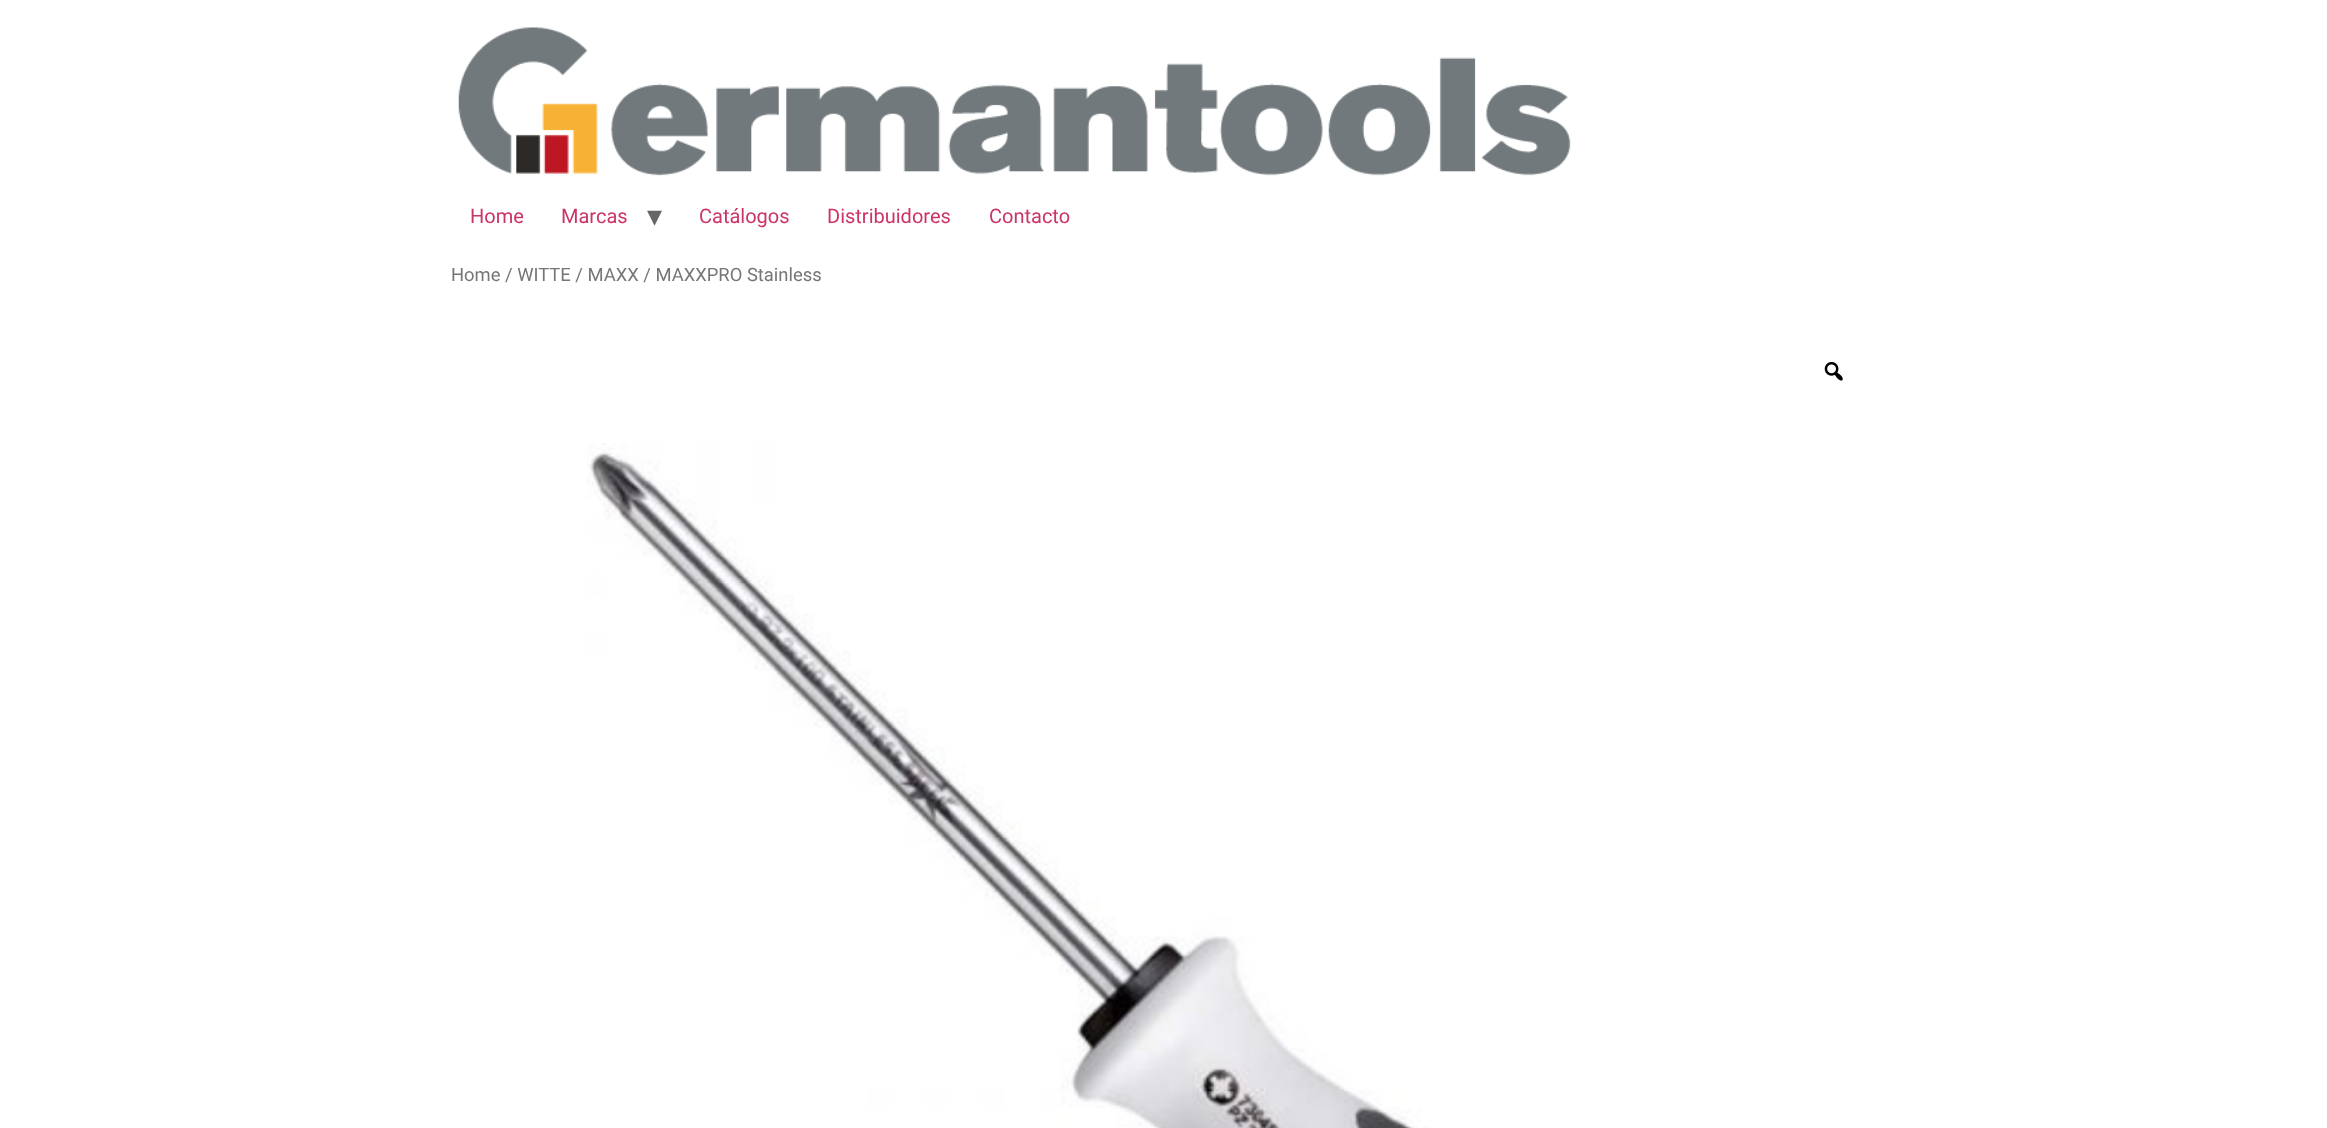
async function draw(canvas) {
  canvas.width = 2327
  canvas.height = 1128
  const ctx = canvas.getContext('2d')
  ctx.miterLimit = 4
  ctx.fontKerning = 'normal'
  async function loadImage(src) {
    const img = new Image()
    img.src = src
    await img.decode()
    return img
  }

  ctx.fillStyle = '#fff'
  ctx.fillRect(0, 0, 2327, 1128)
  ctx.drawImage(await loadImage('image0.png'), 458, 27, 1113, 149)
  ctx.font = '20px Roboto'
  ctx.fillStyle = '#c36'
  ctx.fillText('Home', 470, 223)
  ctx.fillText('Marcas', 561, 223)
  ctx.font = '30px DejaVu Sans'
  ctx.fillStyle = '#666'
  ctx.fillText('▾', 647, 226)
  ctx.font = '20px Roboto'
  ctx.fillStyle = '#c36'
  ctx.fillText('Catálogos', 699, 223)
  ctx.fillText('Distribuidores', 827, 223)
  ctx.fillText('Contacto', 989, 223)
  ctx.font = '18.4px Roboto'
  ctx.fillStyle = '#767676'
  ctx.fillText('Home / WITTE / MAXX / MAXXPRO Stainless', 451, 281)
  ctx.drawImage(await loadImage('image1.png'), 1824, 362, 19, 19)
  ctx.drawImage(await loadImage('image2.png'), 587, 443, 842, 685)
}

draw(document.querySelector('canvas'))
